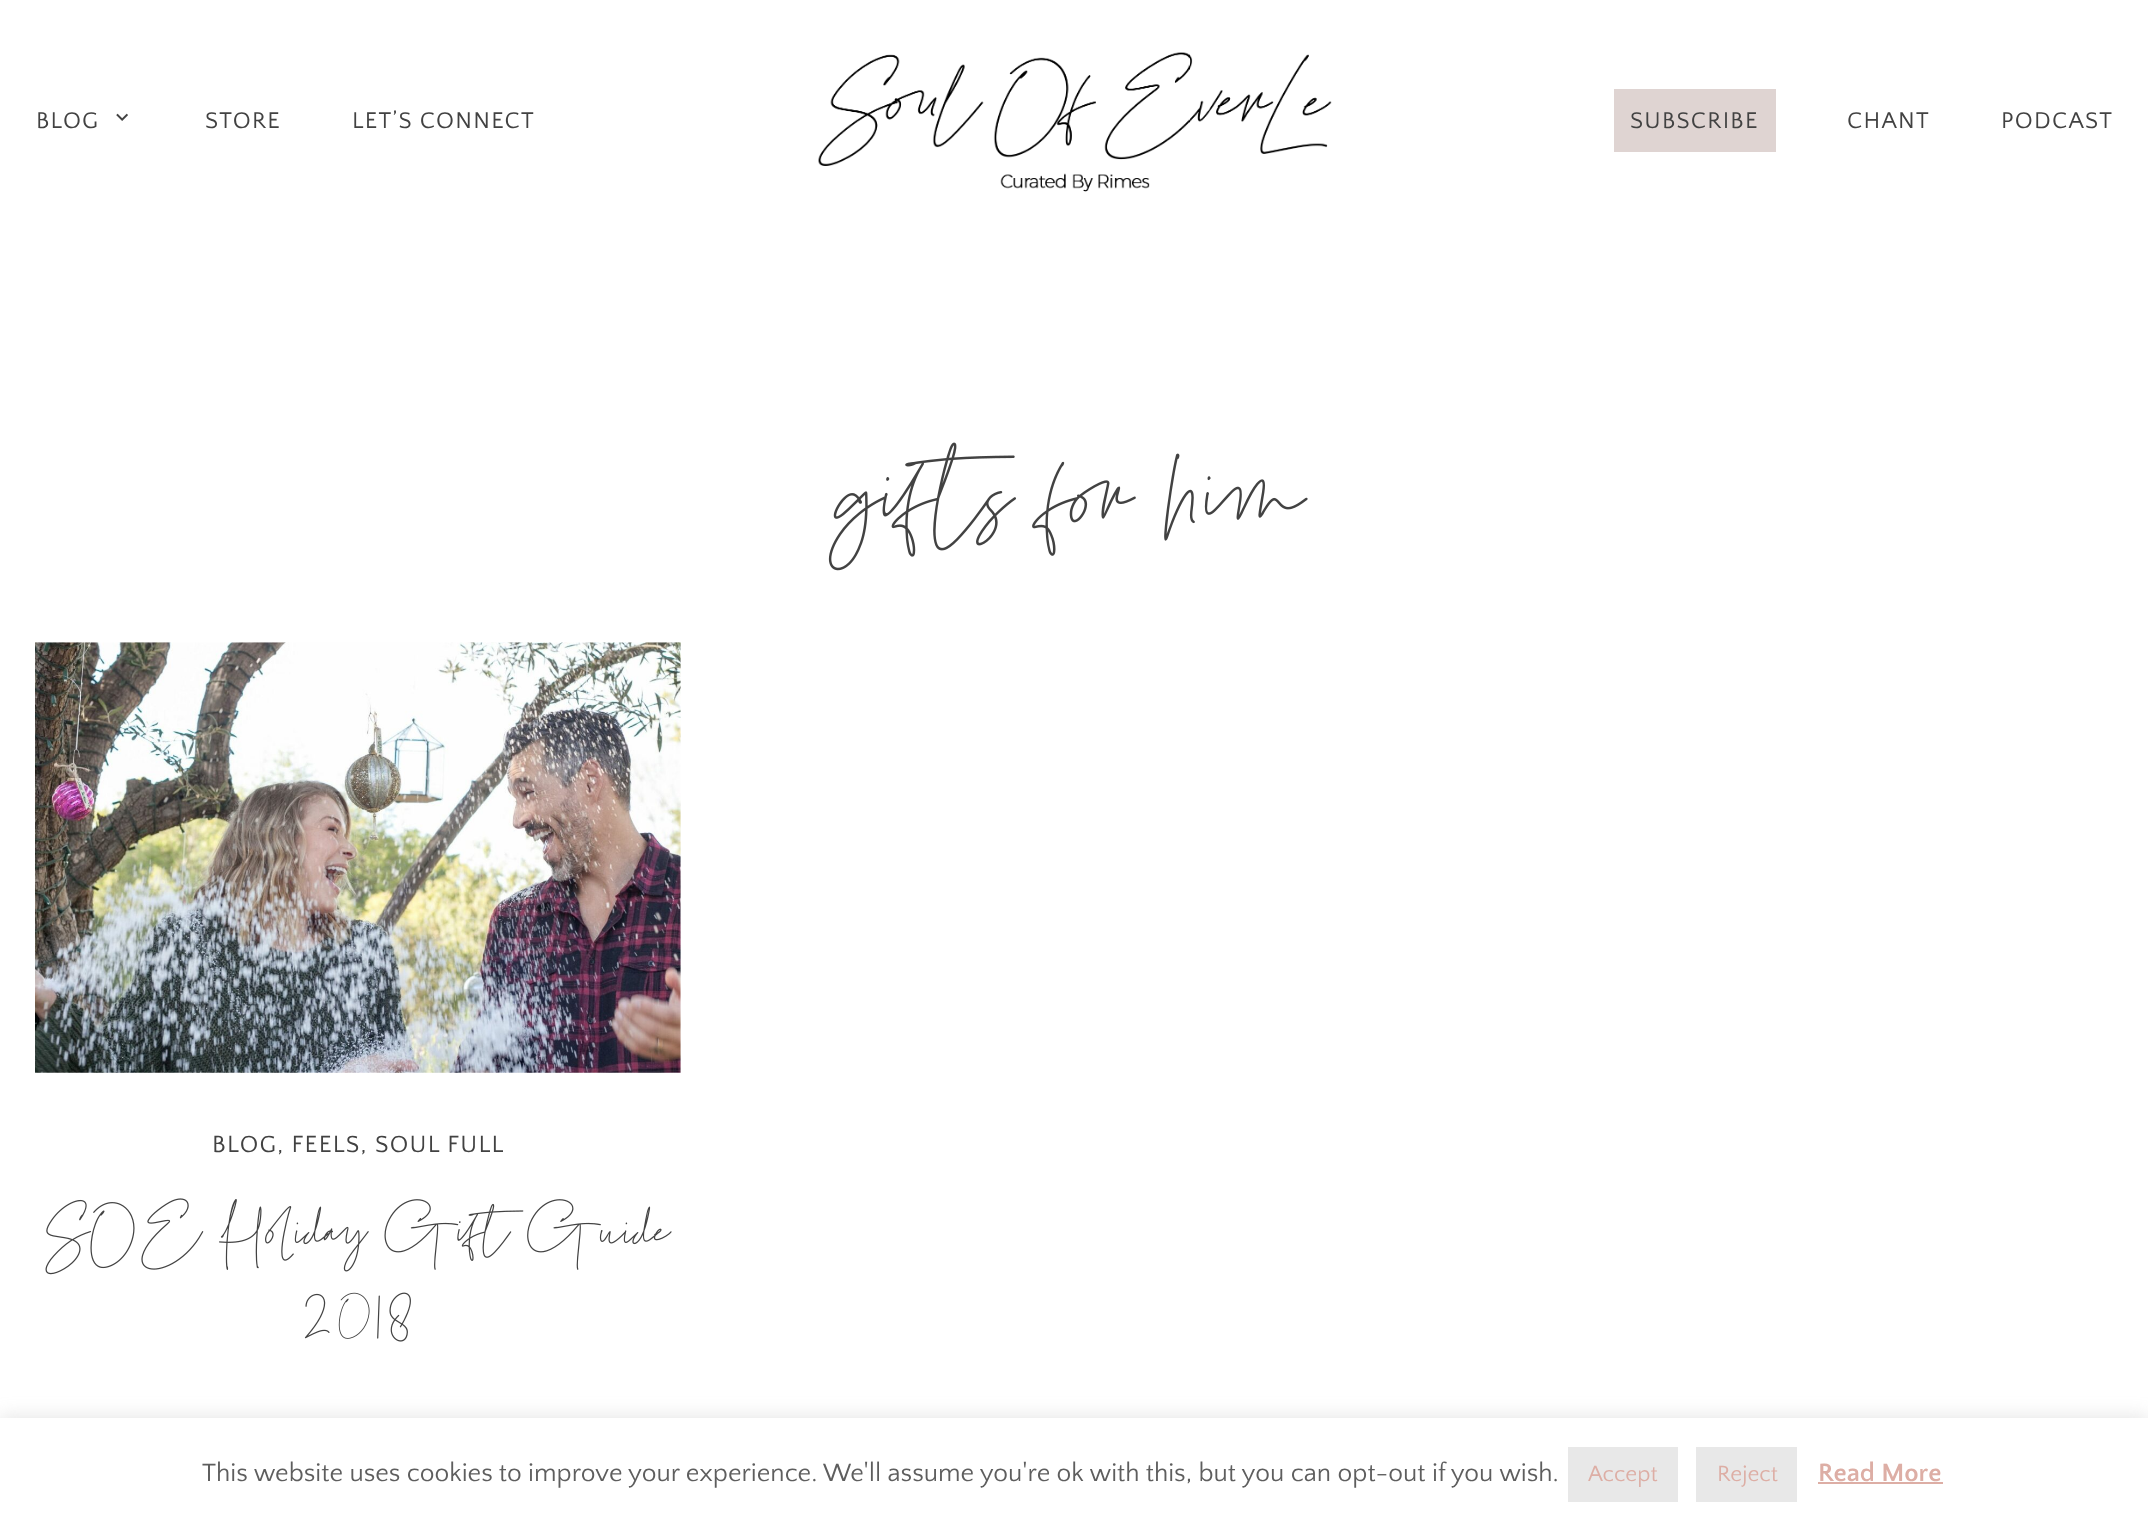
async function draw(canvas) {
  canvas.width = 2148
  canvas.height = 1531
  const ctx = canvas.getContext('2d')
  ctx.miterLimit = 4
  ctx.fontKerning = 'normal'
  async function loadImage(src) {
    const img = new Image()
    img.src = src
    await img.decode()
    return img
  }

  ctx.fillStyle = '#fff'
  ctx.fillRect(0, 0, 2148, 1531)
  ctx.letterSpacing = '1.25px'
  ctx.font = '23.75px Quattrocento Sans'
  ctx.fillStyle = '#424242'
  ctx.fillText('BLOG', 36, 128)
  ctx.drawImage(await loadImage('image0.png'), 116, 113, 12, 8)
  ctx.fillText('STORE', 205, 128)
  ctx.fillText('LET’S CONNECT', 352, 128)
  ctx.drawImage(await loadImage('image1.png'), 818, 52, 514, 140)
  ctx.fillStyle = '#dfd4d2'
  ctx.fillRect(1614, 89, 162, 63)
  ctx.fillStyle = '#424242'
  ctx.fillText('SUBSCRIBE', 1630, 128)
  ctx.fillText('CHANT', 1847, 128)
  ctx.fillText('PODCAST', 2001, 128)
  ctx.drawImage(await loadImage('image2.png'), 828, 442, 480, 129)
  ctx.drawImage(await loadImage('image3.png'), 35, 642, 646, 431)
  ctx.font = '24.5px Quattrocento Sans'
  ctx.fillText('BLOG, FEELS, SOUL FULL', 212, 1152)
  ctx.drawImage(await loadImage('image4.png'), 45, 1198, 627, 77)
  ctx.drawImage(await loadImage('image5.png'), 304, 1292, 107, 50)
  ctx.fillStyle = '#acabab4d'
  ctx.filter = 'blur(9px)'
  ctx.beginPath()
  ctx.rect(0, 1416, 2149, 114)
  ctx.fill()
  ctx.filter = 'none'
  ctx.fillStyle = '#fff'
  ctx.fillRect(0, 1418, 2148, 113)
  ctx.letterSpacing = '0px'
  ctx.font = '26.25px Quattrocento Sans'
  ctx.fillStyle = '#5e5e5e'
  ctx.fillText('This website uses cookies to improve your experience. We\'ll assume you\'re ok with this, but you can opt-out if you wish.', 202, 1481)
  ctx.fillStyle = '#e8e8e8'
  ctx.fillRect(1568, 1447, 110, 55)
  ctx.font = '23px Quattrocento Sans'
  ctx.fillStyle = '#ddaea5'
  ctx.fillText('Accept', 1588, 1481)
  ctx.fillStyle = '#e8e8e8'
  ctx.fillRect(1696, 1447, 101, 55)
  ctx.fillStyle = '#ddaea5'
  ctx.fillText('Reject', 1717, 1481)
  ctx.font = 'bold 26.25px Quattrocento Sans'
  ctx.fillText('Read More', 1818, 1481)
  ctx.fillRect(1818, 1482, 125, 2)
}

draw(document.querySelector('canvas'))
